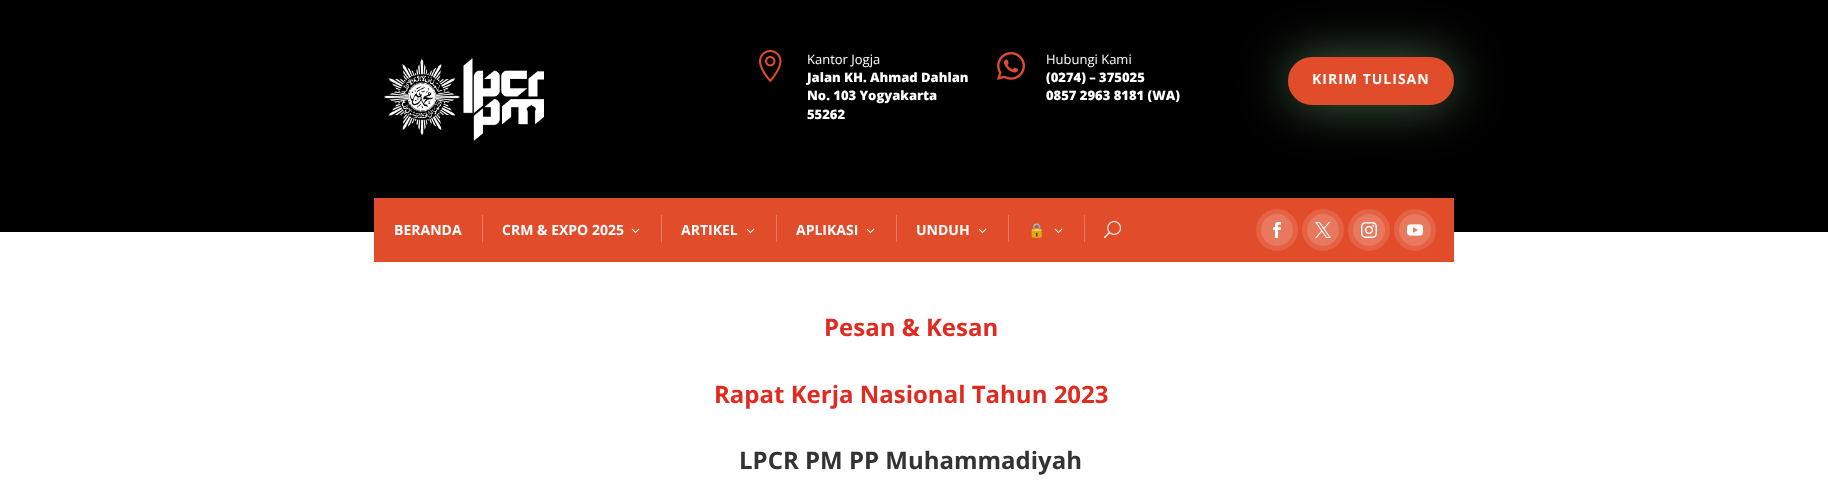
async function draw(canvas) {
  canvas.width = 1828
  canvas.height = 484
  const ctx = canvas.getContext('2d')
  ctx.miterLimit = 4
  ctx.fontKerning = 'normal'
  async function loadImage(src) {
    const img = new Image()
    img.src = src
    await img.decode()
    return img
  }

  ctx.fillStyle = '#fff'
  ctx.fillRect(0, 0, 1828, 484)
  ctx.fillStyle = '#000'
  ctx.fillRect(0, 0, 1828, 232)
  ctx.drawImage(await loadImage('image0.png'), 384, 58, 160, 83)
  ctx.drawImage(await loadImage('image1.png'), 759, 50, 23, 32)
  ctx.font = '13px Open Sans'
  ctx.fillStyle = '#fff'
  ctx.fillText('Kantor Jogja', 807, 64)
  ctx.font = '800 13px Open Sans'
  ctx.fillText('Jalan KH. Ahmad Dahlan', 807, 82)
  ctx.fillText('No. 103 Yogyakarta', 807, 100)
  ctx.fillText('55262', 807, 119)
  ctx.drawImage(await loadImage('image2.png'), 997, 52, 28, 28)
  ctx.font = '13px Open Sans'
  ctx.fillText('Hubungi Kami', 1046, 64)
  ctx.font = '800 13px Open Sans'
  ctx.fillText('(0274) – 375025', 1046, 82)
  ctx.fillText('0857 2963 8181 (WA)', 1046, 100)
  ctx.fillStyle = '#557c56d1'
  ctx.filter = 'blur(25px)'
  ctx.beginPath()
  ctx.roundRect(1288, 57, 166, 48, 24)
  ctx.fill()
  ctx.filter = 'none'
  ctx.fillStyle = '#e14d2a'
  ctx.beginPath()
  ctx.roundRect(1293, 62, 156, 38, 19)
  ctx.fill()
  ctx.strokeStyle = '#e14d2a'
  ctx.lineWidth = 10
  ctx.stroke()
  ctx.letterSpacing = '1px'
  ctx.font = 'bold 14px Open Sans'
  ctx.fillStyle = '#fff'
  ctx.fillText('KIRIM TULISAN', 1312, 84)
  ctx.fillStyle = '#e14d2a'
  ctx.fillRect(374, 198, 1080, 64)
  ctx.letterSpacing = '0px'
  ctx.fillStyle = '#fff'
  ctx.fillText('BERANDA', 394, 235)
  ctx.fillStyle = '#e97a5f'
  ctx.fillRect(482, 215, 1, 27)
  ctx.fillStyle = '#fff'
  ctx.fillText('CRM & EXPO 2025', 502, 235)
  ctx.drawImage(await loadImage('image3.png'), 631, 228, 9, 5)
  ctx.fillStyle = '#e97a5f'
  ctx.fillRect(661, 215, 1, 27)
  ctx.fillStyle = '#fff'
  ctx.fillText('ARTIKEL', 681, 235)
  ctx.drawImage(await loadImage('image3.png'), 746, 228, 9, 5)
  ctx.fillStyle = '#e97a5f'
  ctx.fillRect(776, 215, 1, 27)
  ctx.fillStyle = '#fff'
  ctx.fillText('APLIKASI', 796, 235)
  ctx.drawImage(await loadImage('image3.png'), 866, 228, 9, 5)
  ctx.fillStyle = '#e97a5f'
  ctx.fillRect(896, 215, 1, 27)
  ctx.fillStyle = '#fff'
  ctx.fillText('UNDUH', 916, 235)
  ctx.drawImage(await loadImage('image3.png'), 978, 228, 9, 5)
  ctx.fillStyle = '#e97a5f'
  ctx.fillRect(1008, 215, 1, 27)
  ctx.font = 'bold 14px Noto Color Emoji'
  ctx.fillStyle = '#fff'
  ctx.fillText('🔒', 1028, 235)
  ctx.drawImage(await loadImage('image3.png'), 1054, 228, 9, 5)
  ctx.fillStyle = '#e97a5f'
  ctx.fillRect(1084, 215, 1, 27)
  ctx.drawImage(await loadImage('image4.png'), 1104, 221, 17, 18)
  ctx.beginPath()
  ctx.arc(1277, 230, 18.5, 0, 2 * Math.PI)
  ctx.strokeStyle = '#e56244'
  ctx.lineWidth = 5
  ctx.stroke()
  ctx.fillStyle = '#ffffff40'
  ctx.beginPath()
  ctx.arc(1277, 230, 16, 0, 2 * Math.PI)
  ctx.fill()
  ctx.drawImage(await loadImage('image5.png'), 1273, 222, 8, 16)
  ctx.beginPath()
  ctx.arc(1323, 230, 18.5, 0, 2 * Math.PI)
  ctx.stroke()
  ctx.beginPath()
  ctx.arc(1323, 230, 16, 0, 2 * Math.PI)
  ctx.fill()
  ctx.drawImage(await loadImage('image6.png'), 1315, 222, 16, 16)
  ctx.beginPath()
  ctx.arc(1369, 230, 18.5, 0, 2 * Math.PI)
  ctx.stroke()
  ctx.beginPath()
  ctx.arc(1369, 230, 16, 0, 2 * Math.PI)
  ctx.fill()
  ctx.drawImage(await loadImage('image7.png'), 1361, 222, 16, 16)
  ctx.beginPath()
  ctx.arc(1415, 230, 18.5, 0, 2 * Math.PI)
  ctx.stroke()
  ctx.beginPath()
  ctx.arc(1415, 230, 16, 0, 2 * Math.PI)
  ctx.fill()
  ctx.drawImage(await loadImage('image8.png'), 1407, 224, 16, 12)
  ctx.font = 'bold 24px Open Sans'
  ctx.fillStyle = '#e02b20'
  ctx.fillText('Pesan & Kesan', 824, 336)
  ctx.fillText('Rapat Kerja Nasional Tahun 2023', 714, 403)
  ctx.fillStyle = '#333'
  ctx.fillText('LPCR PM PP Muhammadiyah', 739, 469)
}

draw(document.querySelector('canvas'))
